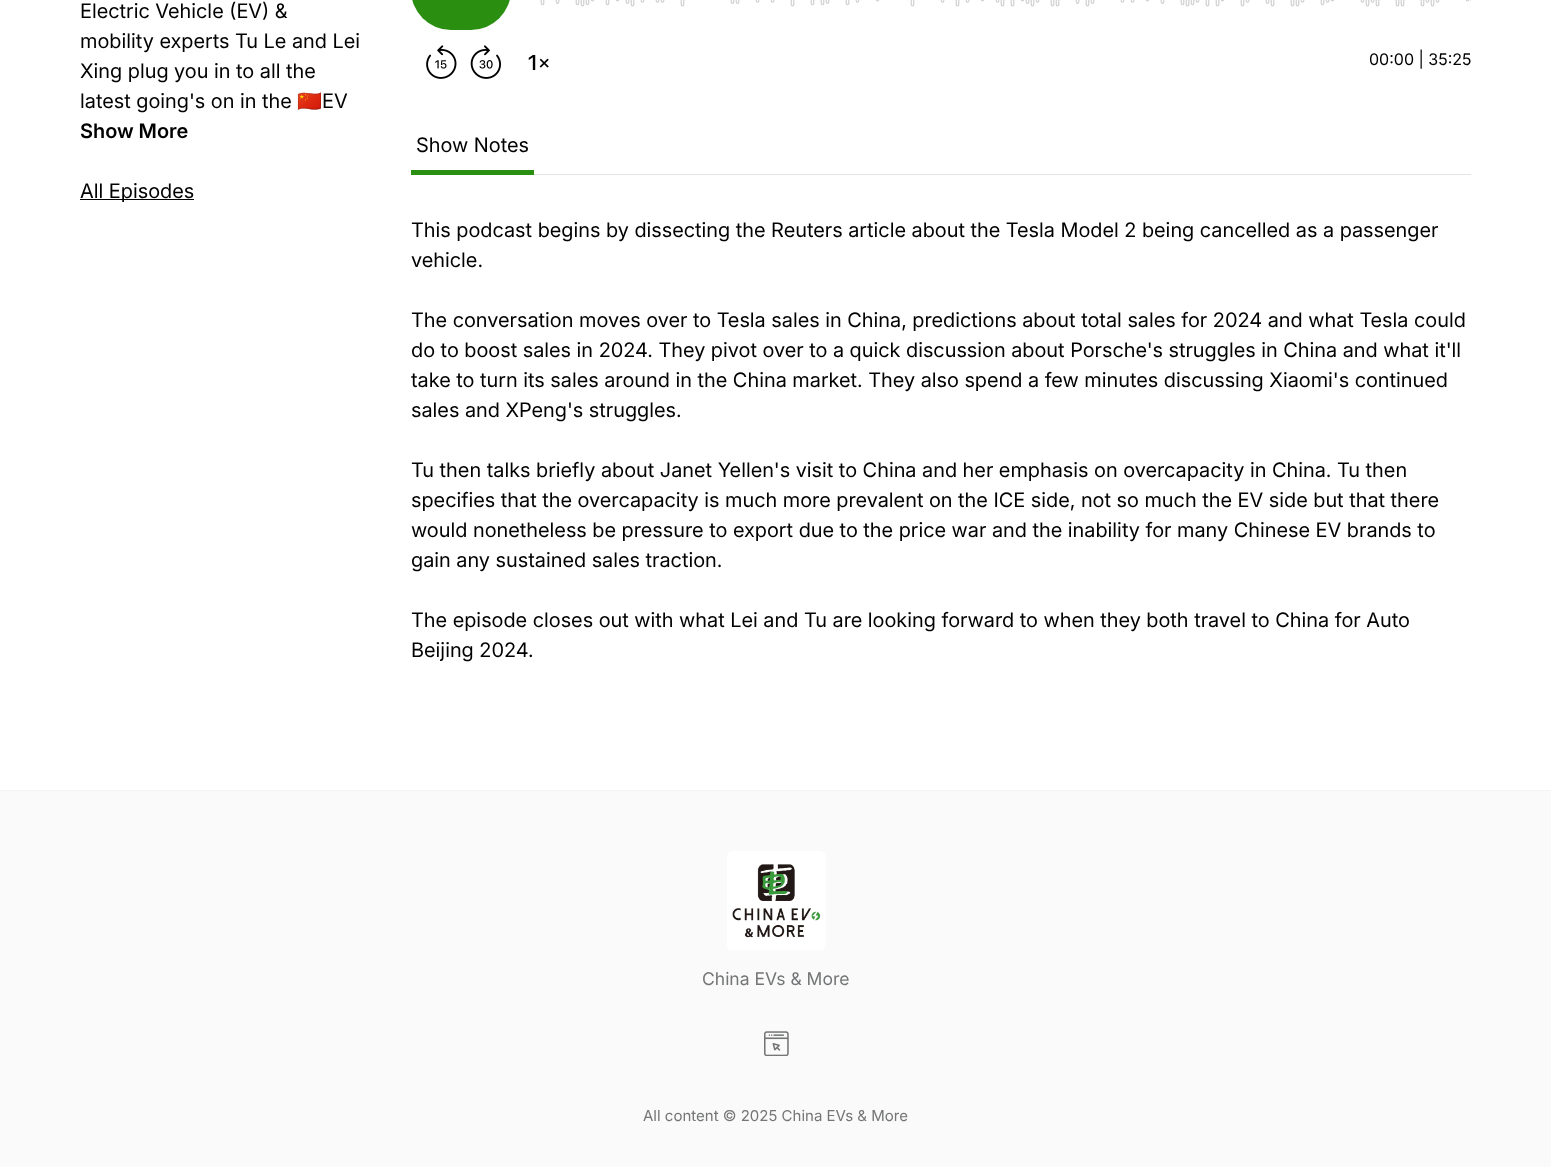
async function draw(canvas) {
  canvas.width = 1551
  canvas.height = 1167
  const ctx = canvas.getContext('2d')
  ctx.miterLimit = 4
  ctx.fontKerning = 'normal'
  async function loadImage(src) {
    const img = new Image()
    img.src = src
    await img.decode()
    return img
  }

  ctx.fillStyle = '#fff'
  ctx.fillRect(0, 0, 1551, 1167)
  ctx.font = '20px Inter'
  ctx.fillStyle = '#000'
  ctx.fillText('Electric Vehicle (EV) &', 80, 18)
  ctx.fillText('mobility experts Tu Le and Lei', 80, 48)
  ctx.fillText('Xing plug you in to all the', 80, 78)
  ctx.fillText('latest going\'s on in the', 80, 108)
  ctx.font = '20px Noto Color Emoji'
  ctx.fillText('🇨🇳', 297, 108)
  ctx.font = '20px Inter'
  ctx.fillText('EV', 322, 108)
  ctx.font = '600 20px Inter'
  ctx.fillText('Show More', 80, 138)
  ctx.fillRect(80, 199, 114, 1)
  ctx.font = '20px Inter'
  ctx.fillText('All Episodes', 80, 198)
  ctx.drawImage(await loadImage('image0.png'), 426, 45, 31, 34)
  ctx.drawImage(await loadImage('image1.png'), 470, 45, 31, 34)
  ctx.drawImage(await loadImage('image2.png'), 528, 55, 21, 15)
  ctx.fillStyle = '#2a8f11'
  ctx.beginPath()
  ctx.roundRect(411, -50, 100, 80, 50)
  ctx.fill()
  ctx.drawImage(await loadImage('image3.png'), 527, 0, 944, 7)
  ctx.font = '16px "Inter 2"'
  ctx.fillStyle = '#000'
  ctx.fillText('00:00 | 35:25', 1369, 65)
  ctx.fillStyle = '#e4e5e6'
  ctx.fillRect(534, 174, 937, 1)
  ctx.fillStyle = '#2a8f11'
  ctx.fillRect(411, 170, 123, 5)
  ctx.font = '20px Inter'
  ctx.fillStyle = '#000'
  ctx.fillText('Show Notes', 416, 152)
  ctx.fillText('This podcast begins by dissecting the Reuters article about the Tesla Model 2 being cancelled as a passenger', 411, 237)
  ctx.fillText('vehicle.', 411, 267)
  ctx.fillText('The conversation moves over to Tesla sales in China, predictions about total sales for 2024 and what Tesla could', 411, 327)
  ctx.fillText('do to boost sales in 2024. They pivot over to a quick discussion about Porsche\'s struggles in China and what it\'ll', 411, 357)
  ctx.fillText('take to turn its sales around in the China market. They also spend a few minutes discussing Xiaomi\'s continued', 411, 387)
  ctx.fillText('sales and XPeng\'s struggles.', 411, 417)
  ctx.fillText('Tu then talks briefly about Janet Yellen\'s visit to China and her emphasis on overcapacity in China. Tu then', 411, 477)
  ctx.fillText('specifies that the overcapacity is much more prevalent on the ICE side, not so much the EV side but that there', 411, 507)
  ctx.fillText('would nonetheless be pressure to export due to the price war and the inability for many Chinese EV brands to', 411, 537)
  ctx.fillText('gain any sustained sales traction.', 411, 567)
  ctx.fillText('The episode closes out with what Lei and Tu are looking forward to when they both travel to China for Auto', 411, 627)
  ctx.fillText('Beijing 2024.', 411, 657)
  ctx.fillStyle = '#fafafa'
  ctx.fillRect(0, 791, 1551, 376)
  ctx.fillStyle = '#f4f4f4'
  ctx.fillRect(0, 790, 1551, 1)
  ctx.drawImage(await loadImage('image4.png'), 727, 851, 99, 99)
  ctx.font = '17.5px "Inter 2"'
  ctx.fillStyle = '#747576'
  ctx.fillText('China EVs & More', 702, 985)
  ctx.drawImage(await loadImage('image5.png'), 764, 1031, 25, 25)
  ctx.font = '15px "Inter 2"'
  ctx.fillText('All content © 2025 China EVs & More', 643, 1121)
}

draw(document.querySelector('canvas'))
